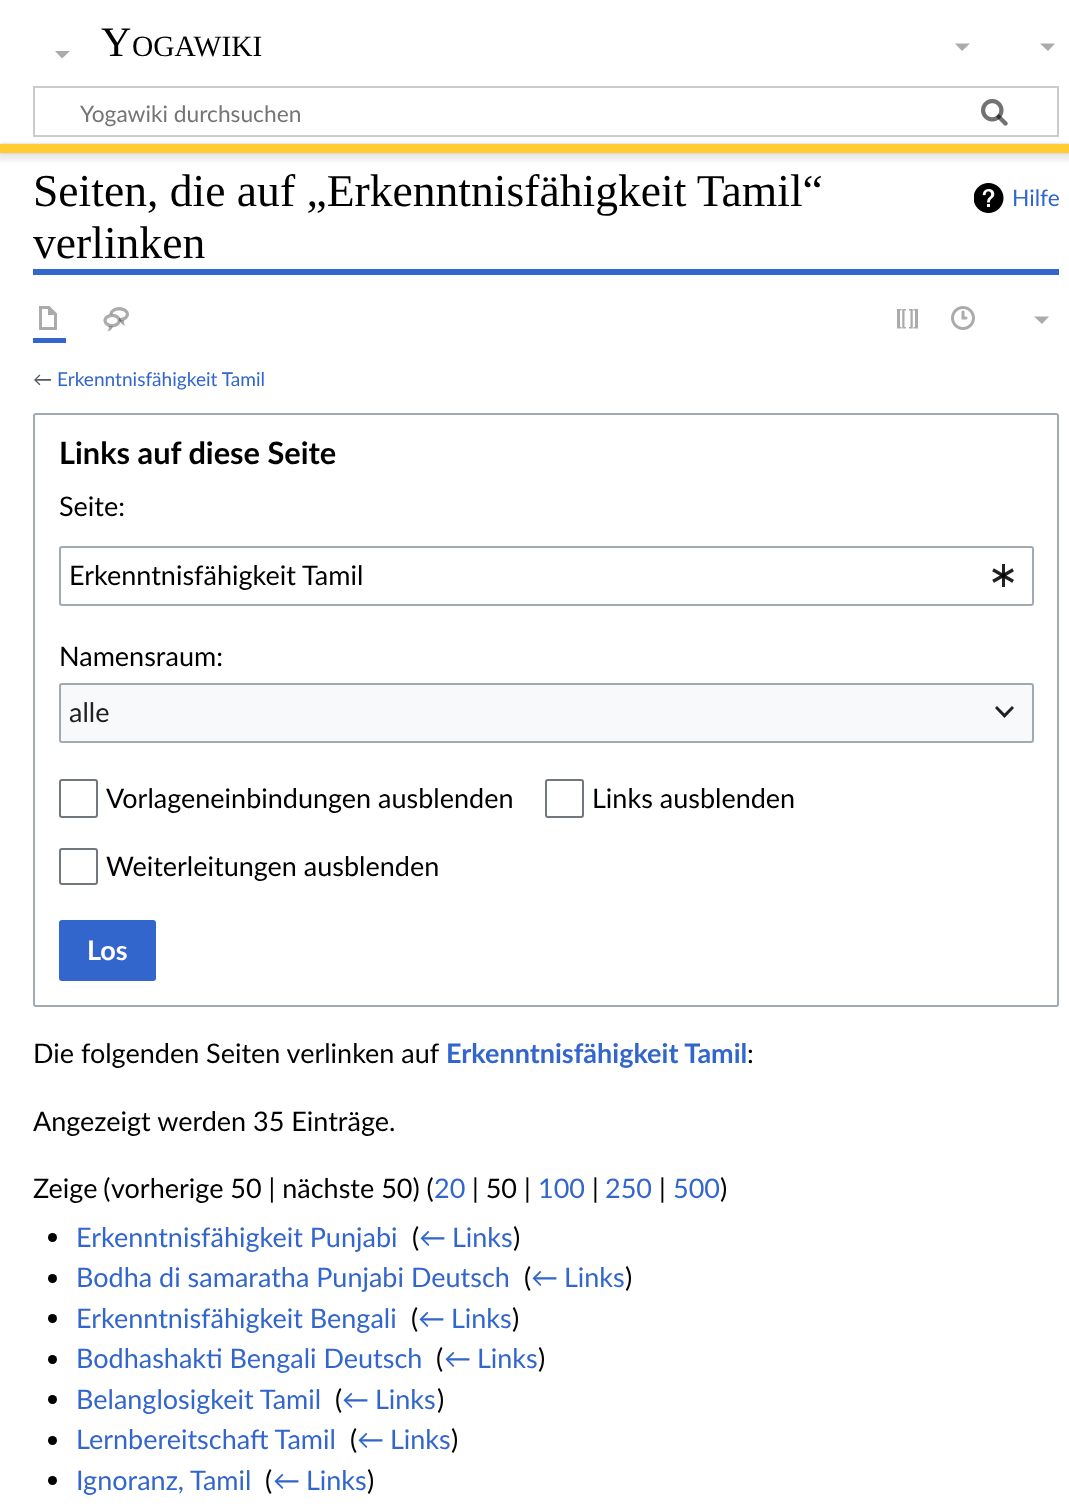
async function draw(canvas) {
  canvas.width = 1069
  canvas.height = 1506
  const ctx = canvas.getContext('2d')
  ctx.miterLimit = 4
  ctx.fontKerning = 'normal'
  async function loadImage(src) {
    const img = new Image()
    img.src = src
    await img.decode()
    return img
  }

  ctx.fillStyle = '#fff'
  ctx.fillRect(0, 0, 1069, 1506)
  ctx.font = '42px Liberation Serif'
  ctx.fillStyle = '#000'
  ctx.fillText('Y', 101, 56)
  ctx.font = '29.5px Liberation Serif'
  ctx.fillText('OGAWIKI', 132, 56)
  ctx.fillStyle = '#ababab'
  ctx.beginPath()
  ctx.moveTo(1055, 43.5)
  ctx.lineTo(1048, 51)
  ctx.lineTo(1040, 43.5)
  ctx.closePath()
  ctx.fill()
  ctx.strokeStyle = '#c8ccd1'
  ctx.lineWidth = 2
  ctx.strokeRect(34, 87, 1024, 49)
  ctx.drawImage(await loadImage('image0.png'), 981, 99, 27, 27)
  ctx.font = '22.75px Lato'
  ctx.fillStyle = '#757575'
  ctx.fillText('Yogawiki durchsuchen', 80, 122)
  ctx.drawImage(await loadImage('image1.png'), 981, 99, 27, 27)
  ctx.fillStyle = '#00000033'
  ctx.filter = 'blur(1.5px)'
  ctx.beginPath()
  ctx.rect(0, 144, 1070, 9)
  ctx.fill()
  ctx.filter = 'none'
  ctx.fillStyle = '#00000012'
  ctx.filter = 'blur(2px)'
  ctx.beginPath()
  ctx.rect(-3, 146, 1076, 15)
  ctx.fill()
  ctx.filter = 'none'
  ctx.fillStyle = '#ffcc32'
  ctx.fillRect(0, 144, 1069, 9)
  ctx.fillStyle = '#ababab'
  ctx.beginPath()
  ctx.moveTo(970, 43.5)
  ctx.lineTo(962, 51)
  ctx.lineTo(955, 43.5)
  ctx.closePath()
  ctx.fill()
  ctx.beginPath()
  ctx.moveTo(70, 51)
  ctx.lineTo(62, 58.5)
  ctx.lineTo(55, 51)
  ctx.closePath()
  ctx.fill()
  ctx.fillStyle = '#36c'
  ctx.fillRect(33, 269, 1026, 6)
  ctx.font = '45.6px Liberation Serif'
  ctx.fillStyle = '#000'
  ctx.fillText('Seiten, die auf „Erkenntnisfähigkeit Tamil“', 33, 206)
  ctx.fillText('verlinken', 33, 258)
  ctx.drawImage(await loadImage('image2.png'), 974, 183, 30, 30)
  ctx.font = '22.75px Lato'
  ctx.fillStyle = '#36c'
  ctx.fillText('Hilfe', 1012, 206)
  ctx.fillRect(33, 338, 33, 5)
  ctx.drawImage(await loadImage('image3.png'), 39, 306, 18, 24)
  ctx.drawImage(await loadImage('image4.png'), 103, 307, 26, 25)
  ctx.drawImage(await loadImage('image5.png'), 897, 309, 21, 20)
  ctx.drawImage(await loadImage('image6.png'), 951, 306, 24, 24)
  ctx.fillStyle = '#ababab'
  ctx.beginPath()
  ctx.moveTo(1049, 316.5)
  ctx.lineTo(1042, 324)
  ctx.lineTo(1034, 316.5)
  ctx.closePath()
  ctx.fill()
  ctx.font = '19.1px Lato'
  ctx.fillStyle = '#54595d'
  ctx.fillText('←', 33, 386)
  ctx.fillStyle = '#36c'
  ctx.fillText('Erkenntnisfähigkeit Tamil', 57, 386)
  ctx.beginPath()
  ctx.roundRect(34, 414, 1024, 592, 2)
  ctx.strokeStyle = '#a2a9b1'
  ctx.stroke()
  ctx.font = 'bold 30.75px Lato'
  ctx.fillStyle = '#000'
  ctx.fillText('Links auf diese Seite', 59, 464)
  ctx.font = '27px Lato'
  ctx.fillText('Seite:', 59, 516)
  ctx.beginPath()
  ctx.roundRect(60, 547, 973, 58, 2)
  ctx.stroke()
  ctx.fillText('Erkenntnisfähigkeit Tamil', 69, 585)
  ctx.drawImage(await loadImage('image7.png'), 992, 564, 22, 23)
  ctx.fillText('Namensraum:', 59, 666)
  ctx.fillStyle = '#f8f9fa'
  ctx.fillRect(59, 683, 975, 60)
  ctx.beginPath()
  ctx.roundRect(60, 684, 973, 58, 2)
  ctx.stroke()
  ctx.fillStyle = '#202122'
  ctx.fillText('alle', 69, 722)
  ctx.fillStyle = '#202021'
  ctx.beginPath()
  ctx.moveTo(1012, 706)
  ctx.lineTo(1004.5, 713.5)
  ctx.lineTo(997, 706)
  ctx.lineTo(995, 708)
  ctx.lineTo(1004.5, 718)
  ctx.lineTo(1014, 708)
  ctx.closePath()
  ctx.fill()
  ctx.beginPath()
  ctx.roundRect(60, 780, 37, 37, 2)
  ctx.strokeStyle = '#72777d'
  ctx.stroke()
  ctx.fillStyle = '#000'
  ctx.fillText('Vorlageneinbindungen ausblenden', 106, 808)
  ctx.beginPath()
  ctx.roundRect(546, 780, 37, 37, 2)
  ctx.stroke()
  ctx.fillText('Links ausblenden', 592, 808)
  ctx.beginPath()
  ctx.roundRect(60, 849, 37, 35, 2)
  ctx.stroke()
  ctx.fillText('Weiterleitungen ausblenden', 106, 876)
  ctx.fillStyle = '#36c'
  ctx.beginPath()
  ctx.roundRect(60, 921, 95, 59, 2)
  ctx.fill()
  ctx.strokeStyle = '#36c'
  ctx.stroke()
  ctx.font = 'bold 27px Lato'
  ctx.fillStyle = '#fff'
  ctx.fillText('Los', 87, 960)
  ctx.font = '27px Lato'
  ctx.fillStyle = '#000'
  ctx.fillText('Die folgenden Seiten verlinken auf', 33, 1063)
  ctx.font = 'bold 27px Lato'
  ctx.fillStyle = '#36c'
  ctx.fillText('Erkenntnisfähigkeit Tamil', 446, 1063)
  ctx.font = '27px Lato'
  ctx.fillStyle = '#000'
  ctx.fillText(':', 747, 1063)
  ctx.fillText('Angezeigt werden 35 Einträge.', 33, 1131)
  ctx.wordSpacing = '-1px'
  ctx.fillText('Zeige (', 33, 1198)
  ctx.wordSpacing = '0px'
  ctx.fillText('vorherige 50 | nächste 50) (', 111, 1198)
  ctx.fillStyle = '#36c'
  ctx.fillText('20', 434, 1198)
  ctx.fillStyle = '#000'
  ctx.fillText('| 50 |', 472, 1198)
  ctx.fillStyle = '#36c'
  ctx.fillText('100', 538, 1198)
  ctx.fillStyle = '#000'
  ctx.fillText('|', 592, 1198)
  ctx.fillStyle = '#36c'
  ctx.fillText('250', 605, 1198)
  ctx.fillStyle = '#000'
  ctx.fillText('|', 659, 1198)
  ctx.fillStyle = '#36c'
  ctx.fillText('500', 673, 1198)
  ctx.fillStyle = '#000'
  ctx.fillText(')', 720, 1198)
  ctx.beginPath()
  ctx.arc(52.5, 1237.5, 4.5, 0, 2 * Math.PI)
  ctx.fill()
  ctx.fillStyle = '#36c'
  ctx.fillText('Erkenntnisfähigkeit Punjabi', 76, 1247)
  ctx.fillStyle = '#000'
  ctx.fillText('(', 412, 1247)
  ctx.wordSpacing = '-1px'
  ctx.fillStyle = '#36c'
  ctx.fillText('← Links', 419, 1247)
  ctx.wordSpacing = '0px'
  ctx.fillStyle = '#000'
  ctx.fillText(')', 513, 1247)
  ctx.beginPath()
  ctx.arc(52.5, 1278.5, 4.5, 0, 2 * Math.PI)
  ctx.fill()
  ctx.fillStyle = '#36c'
  ctx.fillText('Bodha di samaratha Punjabi Deutsch', 76, 1287)
  ctx.fillStyle = '#000'
  ctx.fillText('(', 524, 1287)
  ctx.wordSpacing = '-1px'
  ctx.fillStyle = '#36c'
  ctx.fillText('← Links', 531, 1287)
  ctx.wordSpacing = '0px'
  ctx.fillStyle = '#000'
  ctx.fillText(')', 625, 1287)
  ctx.beginPath()
  ctx.arc(52.5, 1318.5, 4.5, 0, 2 * Math.PI)
  ctx.fill()
  ctx.fillStyle = '#36c'
  ctx.fillText('Erkenntnisfähigkeit Bengali', 76, 1328)
  ctx.fillStyle = '#000'
  ctx.fillText('(', 411, 1328)
  ctx.wordSpacing = '-1px'
  ctx.fillStyle = '#36c'
  ctx.fillText('← Links', 418, 1328)
  ctx.wordSpacing = '0px'
  ctx.fillStyle = '#000'
  ctx.fillText(')', 512, 1328)
  ctx.beginPath()
  ctx.arc(52.5, 1359.5, 4.5, 0, 2 * Math.PI)
  ctx.fill()
  ctx.fillStyle = '#36c'
  ctx.fillText('Bodhashakti Bengali Deutsch', 76, 1368)
  ctx.fillStyle = '#000'
  ctx.fillText('(', 436, 1368)
  ctx.wordSpacing = '-1px'
  ctx.fillStyle = '#36c'
  ctx.fillText('← Links', 444, 1368)
  ctx.wordSpacing = '0px'
  ctx.fillStyle = '#000'
  ctx.fillText(')', 538, 1368)
  ctx.beginPath()
  ctx.arc(52.5, 1399.5, 4.5, 0, 2 * Math.PI)
  ctx.fill()
  ctx.fillStyle = '#36c'
  ctx.fillText('Belanglosigkeit Tamil', 76, 1409)
  ctx.fillStyle = '#000'
  ctx.fillText('(', 335, 1409)
  ctx.wordSpacing = '-1px'
  ctx.fillStyle = '#36c'
  ctx.fillText('← Links', 342, 1409)
  ctx.wordSpacing = '0px'
  ctx.fillStyle = '#000'
  ctx.fillText(')', 437, 1409)
  ctx.beginPath()
  ctx.arc(52.5, 1440.5, 4.5, 0, 2 * Math.PI)
  ctx.fill()
  ctx.fillStyle = '#36c'
  ctx.fillText('Lernbereitschaft Tamil', 76, 1449)
  ctx.fillStyle = '#000'
  ctx.fillText('(', 350, 1449)
  ctx.wordSpacing = '-1px'
  ctx.fillStyle = '#36c'
  ctx.fillText('← Links', 357, 1449)
  ctx.wordSpacing = '0px'
  ctx.fillStyle = '#000'
  ctx.fillText(')', 451, 1449)
  ctx.beginPath()
  ctx.arc(52.5, 1480.5, 4.5, 0, 2 * Math.PI)
  ctx.fill()
  ctx.fillStyle = '#36c'
  ctx.fillText('Ignoranz, Tamil', 76, 1490)
  ctx.fillStyle = '#000'
  ctx.fillText('(', 265, 1490)
  ctx.wordSpacing = '-1px'
  ctx.fillStyle = '#36c'
  ctx.fillText('← Links', 273, 1490)
  ctx.wordSpacing = '0px'
  ctx.fillStyle = '#000'
  ctx.fillText(')', 367, 1490)
}

draw(document.querySelector('canvas'))
